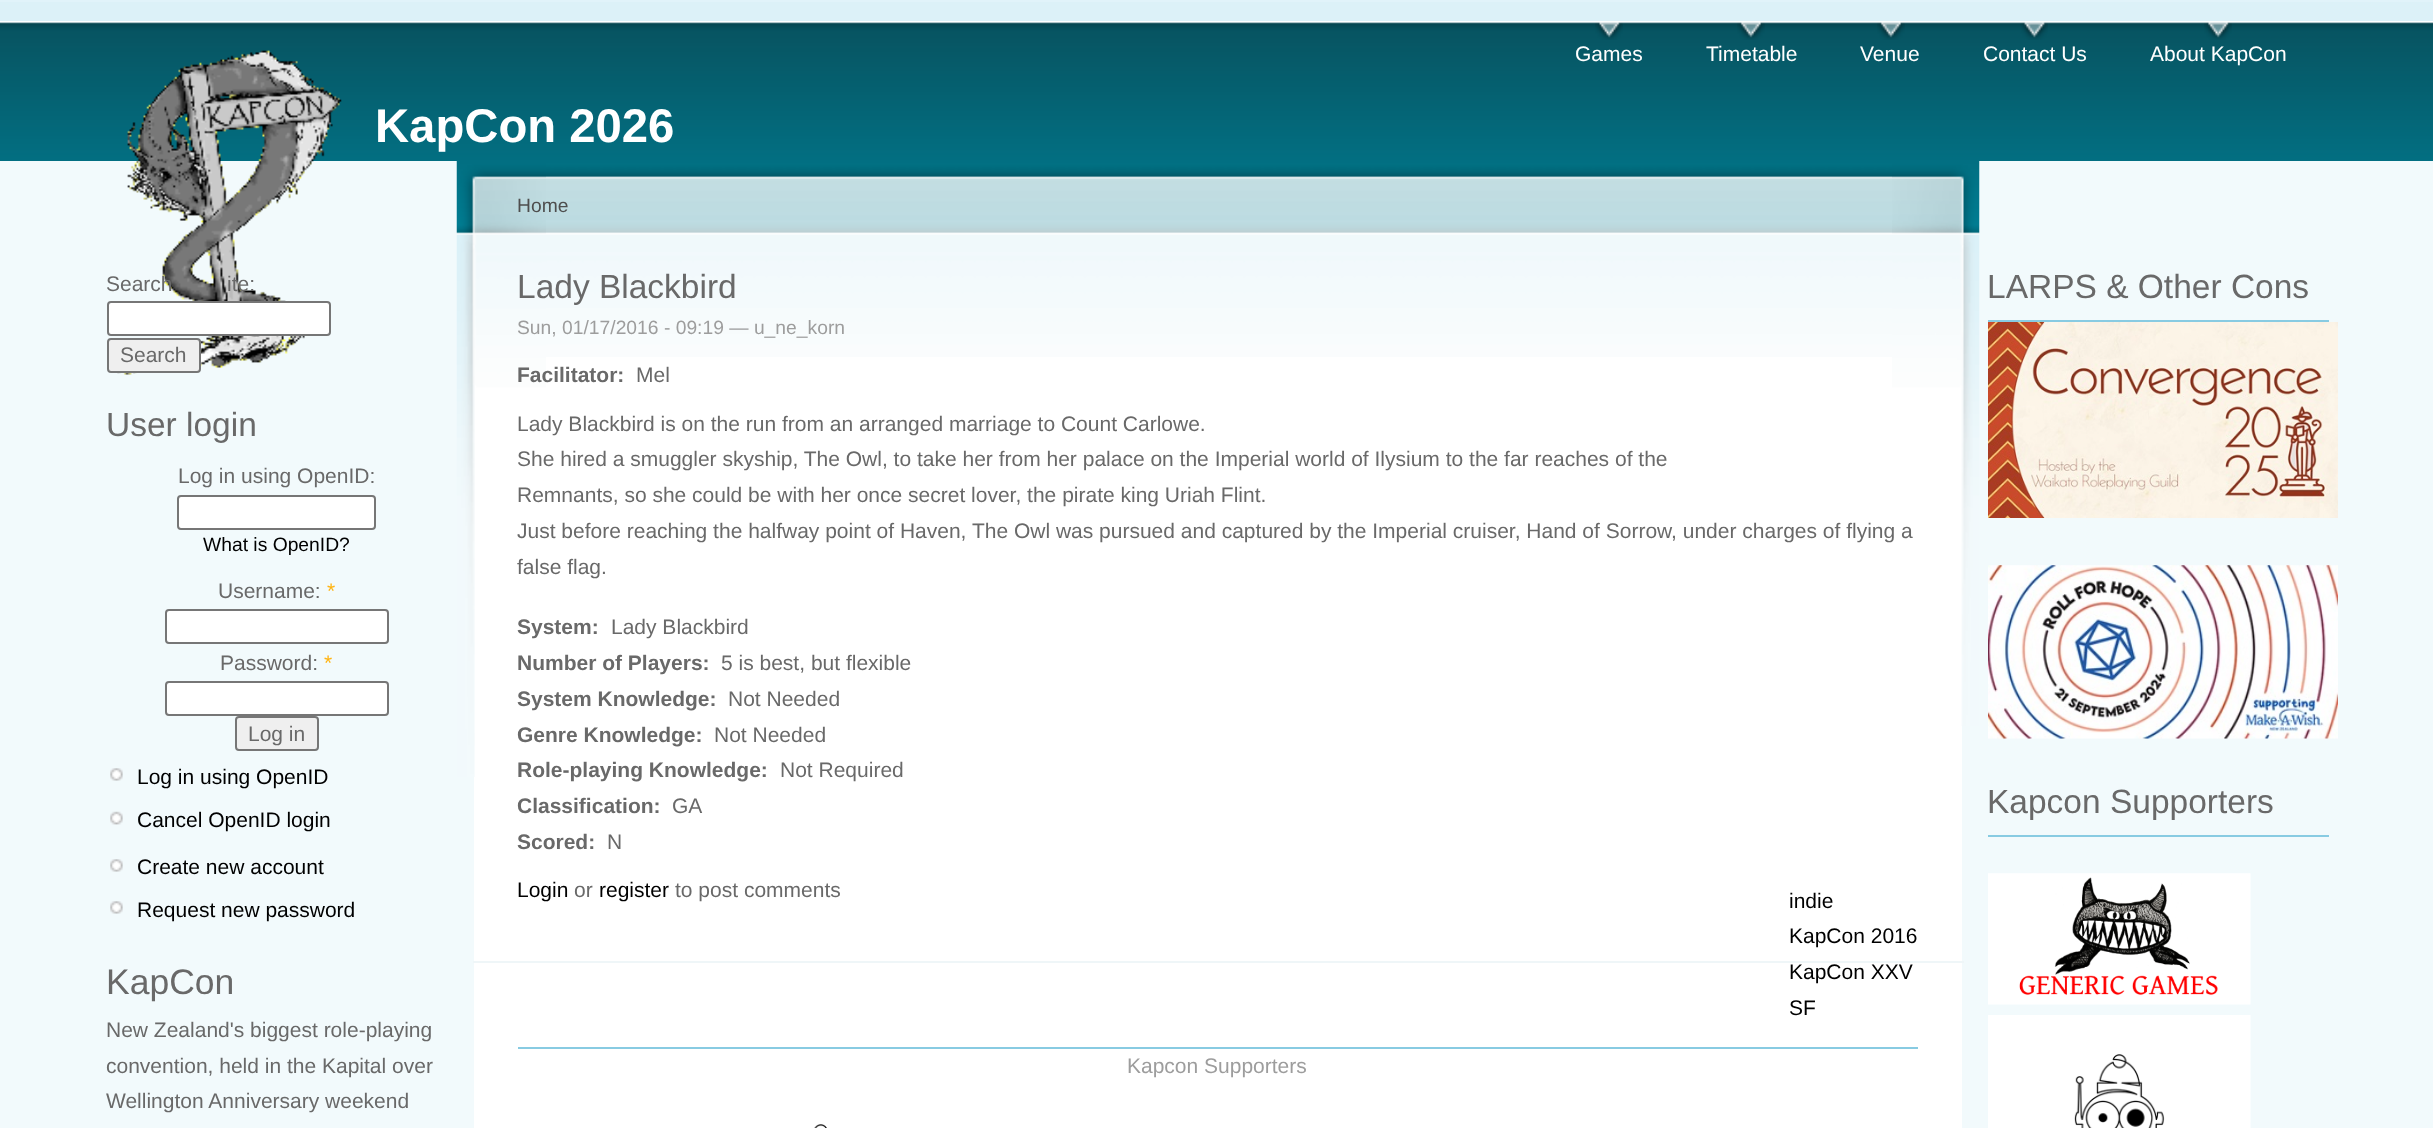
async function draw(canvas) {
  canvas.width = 2433
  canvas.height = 1128
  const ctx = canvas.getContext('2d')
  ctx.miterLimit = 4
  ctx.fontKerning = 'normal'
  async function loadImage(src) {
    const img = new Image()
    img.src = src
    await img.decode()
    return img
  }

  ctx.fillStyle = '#f2fafc'
  ctx.fillRect(0, 0, 2433, 1128)
  ctx.fillStyle = '#e1f3fa'
  ctx.fillRect(0, 0, 2433, 2)
  ctx.fillStyle = '#dcf1f8'
  ctx.fillRect(0, 2, 2433, 19)
  ctx.drawImage(await loadImage('image0.png'), 0, 21, 2433, 140)
  ctx.drawImage(await loadImage('image1.png'), 1595, 22, 28, 18)
  ctx.font = '21px Liberation Sans'
  ctx.fillStyle = '#fff'
  ctx.fillText('Games', 1575, 61)
  ctx.drawImage(await loadImage('image2.png'), 1737, 22, 28, 18)
  ctx.fillText('Timetable', 1706, 61)
  ctx.drawImage(await loadImage('image2.png'), 1877, 22, 28, 18)
  ctx.fillText('Venue', 1860, 61)
  ctx.drawImage(await loadImage('image3.png'), 2020, 22, 28, 18)
  ctx.fillText('Contact Us', 1983, 61)
  ctx.drawImage(await loadImage('image4.png'), 2204, 22, 28, 18)
  ctx.fillText('About KapCon', 2150, 61)
  ctx.drawImage(await loadImage('image5.png'), 117, 50, 225, 325)
  ctx.font = 'bold 47.25px Liberation Sans'
  ctx.fillText('KapCon 2026', 375, 142)
  ctx.font = '21px Liberation Sans'
  ctx.fillStyle = '#696969'
  ctx.fillText('Search', 106, 291)
  ctx.fillText('ite:', 227, 291)
  ctx.fillStyle = '#fff'
  ctx.beginPath()
  ctx.roundRect(108, 302, 222, 33, 3)
  ctx.fill()
  ctx.strokeStyle = '#767676'
  ctx.lineWidth = 2
  ctx.stroke()
  ctx.fillStyle = '#efefef'
  ctx.beginPath()
  ctx.roundRect(108, 339, 92, 33, 3)
  ctx.fill()
  ctx.stroke()
  ctx.fillStyle = '#696969'
  ctx.fillText('Search', 120, 362)
  ctx.font = '33.5px Liberation Sans'
  ctx.fillText('User login', 106, 436)
  ctx.font = '21px Liberation Sans'
  ctx.fillText('Log in using OpenID:', 178, 483)
  ctx.fillStyle = '#fff'
  ctx.beginPath()
  ctx.roundRect(178, 496, 197, 33, 3)
  ctx.fill()
  ctx.stroke()
  ctx.font = '19.3px Liberation Sans'
  ctx.fillStyle = '#000'
  ctx.fillText('What is OpenID?', 203, 551)
  ctx.font = '21px Liberation Sans'
  ctx.fillStyle = '#696969'
  ctx.fillText('Username:', 218, 598)
  ctx.fillStyle = '#ffb413'
  ctx.fillText('*', 327, 598)
  ctx.fillStyle = '#fff'
  ctx.beginPath()
  ctx.roundRect(166, 610, 222, 33, 3)
  ctx.fill()
  ctx.stroke()
  ctx.fillStyle = '#696969'
  ctx.fillText('Password:', 220, 670)
  ctx.fillStyle = '#ffb413'
  ctx.fillText('*', 324, 670)
  ctx.fillStyle = '#fff'
  ctx.beginPath()
  ctx.roundRect(166, 682, 222, 33, 3)
  ctx.fill()
  ctx.stroke()
  ctx.fillStyle = '#efefef'
  ctx.beginPath()
  ctx.roundRect(236, 717, 82, 33, 3)
  ctx.fill()
  ctx.stroke()
  ctx.fillStyle = '#696969'
  ctx.fillText('Log in', 248, 741)
  ctx.drawImage(await loadImage('image6.png'), 110, 768, 13, 13)
  ctx.fillStyle = '#000'
  ctx.fillText('Log in using OpenID', 137, 784)
  ctx.drawImage(await loadImage('image7.png'), 110, 811, 13, 14)
  ctx.fillText('Cancel OpenID login', 137, 827)
  ctx.drawImage(await loadImage('image6.png'), 110, 859, 13, 13)
  ctx.fillText('Create new account', 137, 874)
  ctx.drawImage(await loadImage('image6.png'), 110, 901, 13, 13)
  ctx.fillText('Request new password', 137, 917)
  ctx.font = '35.5px Liberation Sans'
  ctx.fillStyle = '#696969'
  ctx.fillText('KapCon', 106, 994)
  ctx.font = '21px Liberation Sans'
  ctx.fillText('New Zealand\'s biggest role-playing', 106, 1037)
  ctx.fillText('convention, held in the Kapital over', 106, 1073)
  ctx.fillText('Wellington Anniversary weekend', 106, 1108)
  ctx.fillStyle = '#fff'
  ctx.fillRect(474, 357, 1488, 771)
  ctx.drawImage(await loadImage('image8.png'), 546, 161, 1346, 196)
  ctx.drawImage(await loadImage('image9.png'), 1892, 161, 88, 565)
  ctx.drawImage(await loadImage('image10.png'), 456, 161, 90, 616)
  ctx.font = '19.3px Liberation Sans'
  ctx.fillStyle = '#4e4e4e'
  ctx.fillText('Home', 517, 212)
  ctx.font = '33.5px Liberation Sans'
  ctx.fillStyle = '#696969'
  ctx.fillText('Lady Blackbird', 517, 298)
  ctx.fillStyle = '#eff6f8'
  ctx.fillRect(473, 961, 1491, 2)
  ctx.font = '19.3px Liberation Sans'
  ctx.fillStyle = '#9d9d9d'
  ctx.fillText('Sun, 01/17/2016 - 09:19 — u_ne_korn', 517, 334)
  ctx.font = 'bold 21px Liberation Sans'
  ctx.fillStyle = '#696969'
  ctx.fillText('Facilitator:', 517, 382)
  ctx.font = '21px Liberation Sans'
  ctx.fillText('Mel', 636, 382)
  ctx.fillText('Lady Blackbird is on the run from an arranged marriage to Count Carlowe.', 517, 431)
  ctx.fillText('She hired a smuggler skyship, The Owl, to take her from her palace on the Imperial world of Ilysium to the far reaches of the', 517, 466)
  ctx.fillText('Remnants, so she could be with her once secret lover, the pirate king Uriah Flint.', 517, 502)
  ctx.fillText('Just before reaching the halfway point of Haven, The Owl was pursued and captured by the Imperial cruiser, Hand of Sorrow, under charges of flying a', 517, 538)
  ctx.fillText('false flag.', 517, 574)
  ctx.font = 'bold 21px Liberation Sans'
  ctx.fillText('System:', 517, 634)
  ctx.font = '21px Liberation Sans'
  ctx.fillText('Lady Blackbird', 611, 634)
  ctx.font = 'bold 21px Liberation Sans'
  ctx.fillText('Number of Players:', 517, 670)
  ctx.font = '21px Liberation Sans'
  ctx.fillText('5 is best, but flexible', 721, 670)
  ctx.font = 'bold 21px Liberation Sans'
  ctx.fillText('System Knowledge:', 517, 706)
  ctx.font = '21px Liberation Sans'
  ctx.fillText('Not Needed', 728, 706)
  ctx.font = 'bold 21px Liberation Sans'
  ctx.fillText('Genre Knowledge:', 517, 742)
  ctx.font = '21px Liberation Sans'
  ctx.fillText('Not Needed', 714, 742)
  ctx.font = 'bold 21px Liberation Sans'
  ctx.fillText('Role-playing Knowledge:', 517, 777)
  ctx.font = '21px Liberation Sans'
  ctx.fillText('Not Required', 780, 777)
  ctx.font = 'bold 21px Liberation Sans'
  ctx.fillText('Classification:', 517, 813)
  ctx.font = '21px Liberation Sans'
  ctx.fillText('GA', 672, 813)
  ctx.font = 'bold 21px Liberation Sans'
  ctx.fillText('Scored:', 517, 849)
  ctx.font = '21px Liberation Sans'
  ctx.fillText('N', 607, 849)
  ctx.fillStyle = '#000'
  ctx.fillText('Login', 517, 897)
  ctx.fillStyle = '#696969'
  ctx.fillText('or', 574, 897)
  ctx.fillStyle = '#000'
  ctx.fillText('register', 599, 897)
  ctx.fillStyle = '#696969'
  ctx.fillText('to post comments', 675, 897)
  ctx.fillStyle = '#000'
  ctx.fillText('indie', 1789, 908)
  ctx.fillText('KapCon 2016', 1789, 943)
  ctx.fillText('KapCon XXV', 1789, 979)
  ctx.fillText('SF', 1789, 1015)
  ctx.fillStyle = '#88cbe2'
  ctx.fillRect(518, 1047, 1400, 2)
  ctx.fillStyle = '#9d9d9d'
  ctx.fillText('Kapcon Supporters', 1127, 1073)
  ctx.drawImage(await loadImage('image11.png'), 814, 1124, 13, 4)
  ctx.font = '33.5px Liberation Sans'
  ctx.fillStyle = '#696969'
  ctx.fillText('LARPS & Other Cons', 1987, 298)
  ctx.fillStyle = '#88cbe2'
  ctx.fillRect(1988, 320, 341, 2)
  ctx.drawImage(await loadImage('image12.png'), 1988, 322, 350, 196)
  ctx.drawImage(await loadImage('image13.png'), 1988, 565, 350, 174)
  ctx.fillStyle = '#696969'
  ctx.fillText('Kapcon Supporters', 1987, 813)
  ctx.fillStyle = '#88cbe2'
  ctx.fillRect(1988, 835, 341, 2)
  ctx.drawImage(await loadImage('image14.png'), 1988, 873, 263, 132)
  ctx.drawImage(await loadImage('image15.png'), 1988, 1015, 263, 113)
}

draw(document.querySelector('canvas'))
